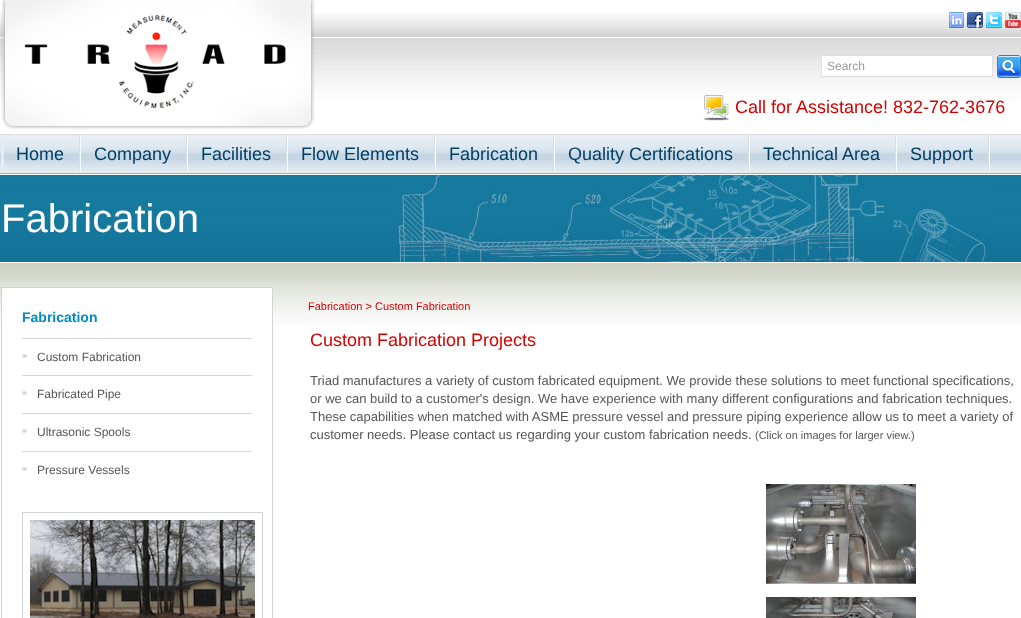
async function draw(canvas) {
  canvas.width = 1021
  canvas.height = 618
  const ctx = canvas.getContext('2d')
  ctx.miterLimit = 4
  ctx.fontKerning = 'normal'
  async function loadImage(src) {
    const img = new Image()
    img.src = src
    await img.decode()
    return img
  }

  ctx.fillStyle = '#fff'
  ctx.fillRect(0, 0, 1021, 618)
  ctx.drawImage(await loadImage('image0.png'), 0, 13, 1021, 161)
  ctx.drawImage(await loadImage('image1.png'), 1, 0, 314, 130)
  ctx.drawImage(await loadImage('image2.png'), 949, 12, 72, 17)
  ctx.beginPath()
  ctx.rect(821.5, 55.5, 171, 21)
  ctx.fill()
  ctx.strokeStyle = '#dedede'
  ctx.stroke()
  ctx.font = '12px Liberation Sans'
  ctx.fillStyle = '#999'
  ctx.fillText('Search', 827, 70)
  ctx.drawImage(await loadImage('image3.png'), 997, 55, 24, 23)
  ctx.drawImage(await loadImage('image4.png'), 703, 95, 26, 26)
  ctx.font = '18px Liberation Sans'
  ctx.fillStyle = '#d70000'
  ctx.fillText('Call for Assistance! 832-762-3676', 735, 113)
  ctx.fillStyle = '#e8edf0'
  ctx.fillRect(1, 135, 3, 36)
  ctx.fillStyle = '#003f65'
  ctx.fillText('Home', 16, 160)
  ctx.drawImage(await loadImage('image5.png'), 79, 135, 2, 36)
  ctx.fillText('Company', 94, 160)
  ctx.drawImage(await loadImage('image5.png'), 186, 135, 2, 36)
  ctx.fillText('Facilities', 201, 160)
  ctx.drawImage(await loadImage('image5.png'), 286, 135, 2, 36)
  ctx.fillText('Flow Elements', 301, 160)
  ctx.drawImage(await loadImage('image5.png'), 434, 135, 2, 36)
  ctx.fillText('Fabrication', 449, 160)
  ctx.drawImage(await loadImage('image5.png'), 553, 135, 2, 36)
  ctx.fillText('Quality Certifications', 568, 160)
  ctx.drawImage(await loadImage('image5.png'), 748, 135, 2, 36)
  ctx.fillText('Technical Area', 763, 160)
  ctx.drawImage(await loadImage('image5.png'), 895, 135, 2, 36)
  ctx.fillText('Support', 910, 160)
  ctx.drawImage(await loadImage('image5.png'), 988, 135, 2, 36)
  ctx.drawImage(await loadImage('image6.png'), 0, 175, 1021, 87)
  ctx.drawImage(await loadImage('image7.png'), 392, 175, 600, 87)
  ctx.font = '40px Liberation Sans'
  ctx.fillStyle = '#fff'
  ctx.fillText('Fabrication', 1, 232)
  ctx.drawImage(await loadImage('image8.png'), 0, 263, 1021, 61)
  ctx.fillRect(2, 288, 270, 36)
  ctx.strokeStyle = '#d3d3d3'
  ctx.strokeRect(1.5, 287.5, 271, 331)
  ctx.font = 'bold 14px Liberation Sans'
  ctx.fillStyle = '#008cc4'
  ctx.fillText('Fabrication', 22, 322)
  ctx.drawImage(await loadImage('image9.png'), 22, 354, 5, 4)
  ctx.fillStyle = '#d7d7d7'
  ctx.fillRect(22, 338, 230, 1)
  ctx.font = '12px Liberation Sans'
  ctx.fillStyle = '#565656'
  ctx.fillText('Custom Fabrication', 37, 361)
  ctx.drawImage(await loadImage('image9.png'), 22, 391, 5, 4)
  ctx.fillStyle = '#d7d7d7'
  ctx.fillRect(22, 375, 230, 1)
  ctx.fillStyle = '#565656'
  ctx.fillText('Fabricated Pipe', 37, 398)
  ctx.drawImage(await loadImage('image9.png'), 22, 429, 5, 4)
  ctx.fillStyle = '#d7d7d7'
  ctx.fillRect(22, 413, 230, 1)
  ctx.fillStyle = '#565656'
  ctx.fillText('Ultrasonic Spools', 37, 436)
  ctx.drawImage(await loadImage('image9.png'), 22, 467, 5, 4)
  ctx.fillStyle = '#d7d7d7'
  ctx.fillRect(22, 451, 230, 1)
  ctx.fillStyle = '#565656'
  ctx.fillText('Pressure Vessels', 37, 474)
  ctx.strokeRect(22.5, 512.5, 240, 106)
  ctx.drawImage(await loadImage('image10.png'), 30, 520, 225, 98)
  ctx.font = '11px Liberation Sans'
  ctx.fillStyle = '#d70000'
  ctx.fillText('Fabrication > Custom Fabrication', 308, 310)
  ctx.font = '18px Liberation Sans'
  ctx.fillText('Custom Fabrication Projects', 310, 346)
  ctx.font = '13px Liberation Sans'
  ctx.fillStyle = '#565656'
  ctx.fillText('Triad manufactures a variety of custom fabricated equipment. We provide these solutions to meet functional specifications,', 310, 385)
  ctx.fillText('or we can build to a customer\'s design. We have experience with many different configurations and fabrication techniques.', 310, 403)
  ctx.fillText('These capabilities when matched with ASME pressure vessel and pressure piping experience allow us to meet a variety of', 310, 421)
  ctx.fillText('customer needs. Please contact us regarding your custom fabrication needs.', 310, 439)
  ctx.font = '11px Liberation Sans'
  ctx.fillText('(Click on images for larger view.)', 755, 439)
  ctx.drawImage(await loadImage('image11.png'), 766, 484, 150, 100)
  ctx.drawImage(await loadImage('image12.png'), 766, 597, 150, 21)
}

draw(document.querySelector('canvas'))
